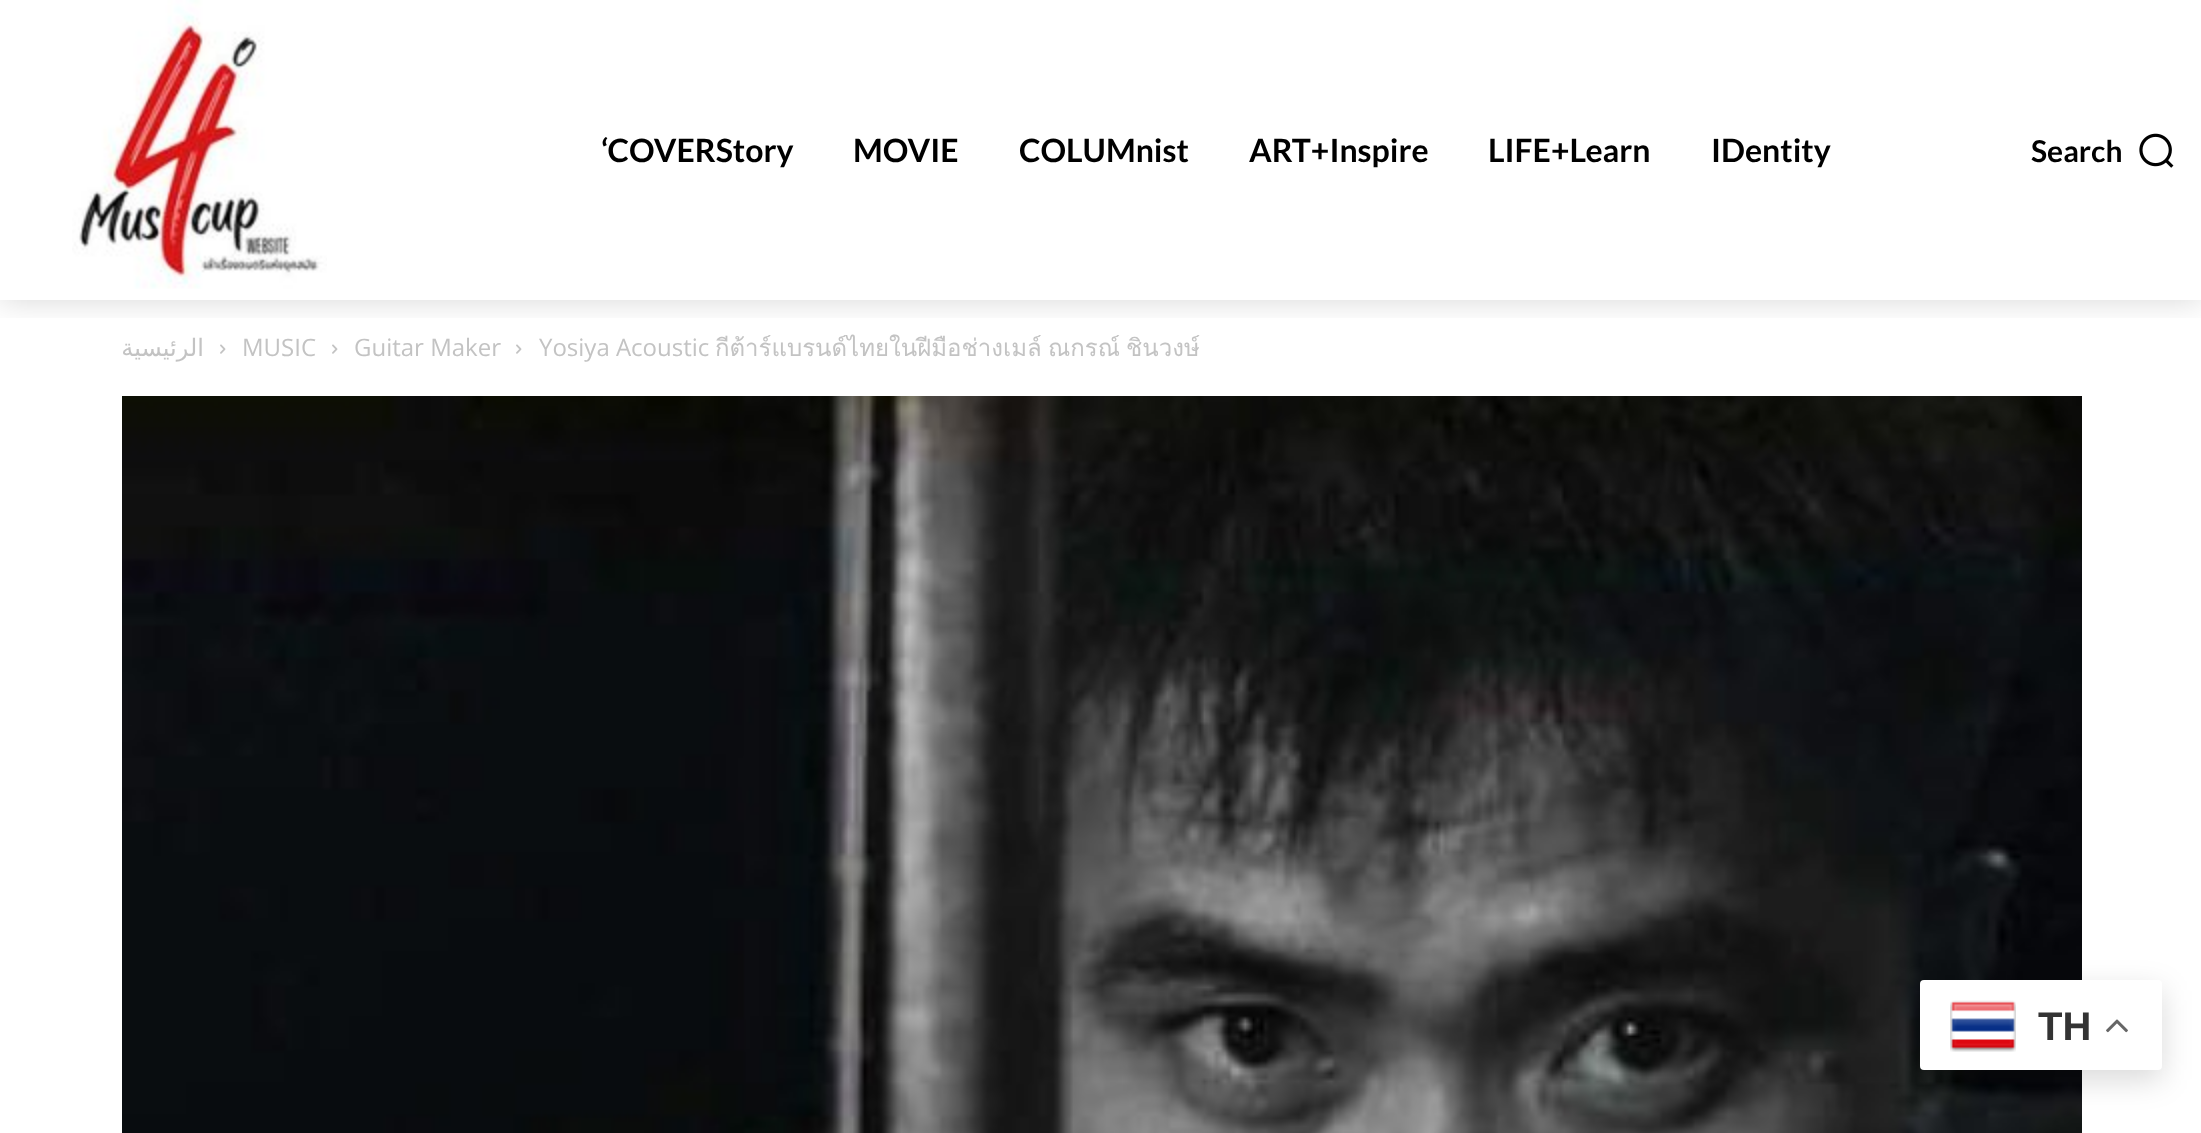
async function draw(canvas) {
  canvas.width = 2201
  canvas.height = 1133
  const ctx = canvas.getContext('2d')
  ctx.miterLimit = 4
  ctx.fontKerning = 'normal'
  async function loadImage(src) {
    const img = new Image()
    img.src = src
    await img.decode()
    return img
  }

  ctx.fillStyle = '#fff'
  ctx.fillRect(0, 0, 2201, 1133)
  ctx.drawImage(await loadImage('image2.png'), 220, 344, 6, 10)
  ctx.drawImage(await loadImage('image2.png'), 332, 344, 6, 10)
  ctx.drawImage(await loadImage('image2.png'), 516, 344, 6, 10)
  ctx.save()
  ctx.beginPath()
  ctx.rect(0, 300, 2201, 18)
  ctx.clip()
  ctx.fillStyle = '#00000029'
  ctx.filter = 'blur(16px)'
  ctx.beginPath()
  ctx.rect(0, 0, 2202, 300)
  ctx.fill()
  ctx.filter = 'none'
  ctx.restore()
  ctx.drawImage(await loadImage('image0.png'), 72, 0, 255, 289)
  ctx.font = 'bold 32px Lato'
  ctx.fillStyle = '#000'
  ctx.fillText('‘COVERStory', 601, 162)
  ctx.fillText('MOVIE', 853, 162)
  ctx.fillText('COLUMnist', 1019, 162)
  ctx.fillText('ART+Inspire', 1249, 162)
  ctx.fillText('LIFE+Learn', 1488, 162)
  ctx.fillText('IDentity', 1711, 162)
  ctx.font = 'bold 30px Lato'
  ctx.fillText('Search', 2031, 162)
  ctx.drawImage(await loadImage('image1.png'), 2139, 133, 35, 35)
  ctx.direction = 'rtl'
  ctx.font = '24px DejaVu Sans'
  ctx.fillStyle = '#c3c3c3'
  ctx.fillText('الرئيسية', 204, 356)
  ctx.direction = 'ltr'
  ctx.font = '24px Open Sans'
  ctx.fillText('MUSIC', 242, 356)
  ctx.fillText('Guitar Maker', 354, 356)
  ctx.fillText('Yosiya Acoustic', 539, 356)
  ctx.font = '24px Loma'
  ctx.fillText('กีต้าร์แบรนด์ไทยในฝีมือช่างเมล์', 715, 356)
  ctx.fillText('ณกรณ์', 1048, 356)
  ctx.fillText('ชินวงษ์', 1126, 356)
  ctx.drawImage(await loadImage('image3.png'), 122, 396, 1960, 737)
  ctx.fillStyle = '#00000026'
  ctx.filter = 'blur(15px)'
  ctx.beginPath()
  ctx.roundRect(1920, 990, 242, 90, 4)
  ctx.fill()
  ctx.filter = 'none'
  ctx.fillStyle = '#fff'
  ctx.beginPath()
  ctx.roundRect(1920, 980, 242, 90, 4)
  ctx.fill()
  ctx.drawImage(await loadImage('image4.png'), 1950, 1000, 66, 52)
  ctx.font = 'bold 40px Liberation Sans'
  ctx.fillStyle = '#333'
  ctx.fillText('TH', 2038, 1040)
  ctx.drawImage(await loadImage('image5.png'), 2106, 1019, 22, 14)
}

draw(document.querySelector('canvas'))
